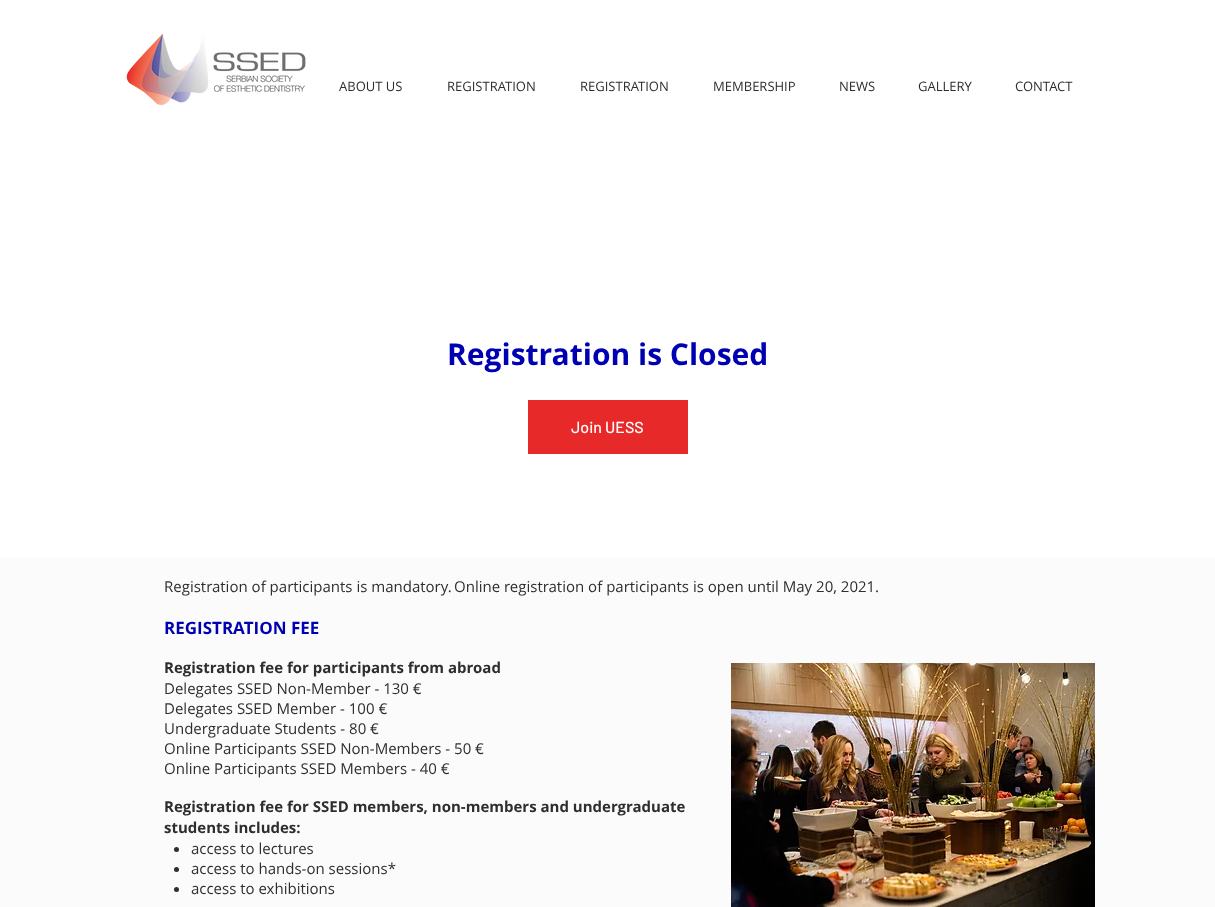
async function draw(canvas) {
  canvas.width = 1215
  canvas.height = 907
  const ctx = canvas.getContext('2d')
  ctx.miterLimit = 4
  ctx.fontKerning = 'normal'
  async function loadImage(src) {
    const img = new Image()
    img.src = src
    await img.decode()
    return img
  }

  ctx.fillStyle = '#fff'
  ctx.fillRect(0, 0, 1215, 907)
  ctx.drawImage(await loadImage('image0.png'), 126, 33, 180, 73)
  ctx.font = '13px Open Sans'
  ctx.fillStyle = '#2f2e2e'
  ctx.fillText('ABOUT US', 339, 91)
  ctx.fillText('REGISTRATION', 447, 91)
  ctx.fillText('REGISTRATION', 580, 91)
  ctx.fillText('MEMBERSHIP', 713, 91)
  ctx.fillText('NEWS', 839, 91)
  ctx.fillText('GALLERY', 918, 91)
  ctx.fillText('CONTACT', 1015, 91)
  ctx.font = 'bold 30px Open Sans'
  ctx.fillStyle = '#0000b3'
  ctx.fillText('Registration is Closed', 447, 365)
  ctx.fillStyle = '#e82929'
  ctx.fillRect(528, 400, 160, 54)
  ctx.font = '500 16px Barlow'
  ctx.fillStyle = '#fff'
  ctx.fillText('Join UESS', 571, 433)
  ctx.fillStyle = '#fbfbfb'
  ctx.fillRect(0, 557, 1215, 350)
  ctx.font = '15px Open Sans'
  ctx.fillStyle = '#2f2e2e'
  ctx.fillText('Registration of participants is mandatory.', 164, 592)
  ctx.fillText('Online registration of participants is open until May 20, 2021.', 454, 592)
  ctx.font = 'bold 17px Open Sans'
  ctx.fillStyle = '#0000b3'
  ctx.fillText('REGISTRATION FEE', 164, 634)
  ctx.font = 'bold 15px Open Sans'
  ctx.fillStyle = '#2f2e2e'
  ctx.fillText('Registration fee for participants from abroad', 164, 673)
  ctx.font = '15px Open Sans'
  ctx.fillText('Delegates SSED Non-Member - 130 €', 164, 694)
  ctx.fillText('Delegates SSED Member - 100 €', 164, 714)
  ctx.fillText('Undergraduate Students - 80 €', 164, 734)
  ctx.fillText('Online Participants SSED Non-Members - 50 €', 164, 754)
  ctx.fillText('Online Participants SSED Members - 40 €', 164, 774)
  ctx.font = 'bold 15px Open Sans'
  ctx.fillText('Registration fee for SSED members, non-members and undergraduate', 164, 812)
  ctx.fillText('students includes:', 164, 833)
  ctx.beginPath()
  ctx.arc(176.5, 849.5, 2.5, 0, 2 * Math.PI)
  ctx.fill()
  ctx.font = '15px Open Sans'
  ctx.fillText('access to lectures', 191, 854)
  ctx.beginPath()
  ctx.arc(176.5, 869.5, 2.5, 0, 2 * Math.PI)
  ctx.fill()
  ctx.fillText('access to hands-on sessions*', 191, 874)
  ctx.beginPath()
  ctx.arc(176.5, 889.5, 2.5, 0, 2 * Math.PI)
  ctx.fill()
  ctx.fillText('access to exhibitions', 191, 894)
  ctx.drawImage(await loadImage('image1.png'), 731, 663, 364, 244)
}

draw(document.querySelector('canvas'))
